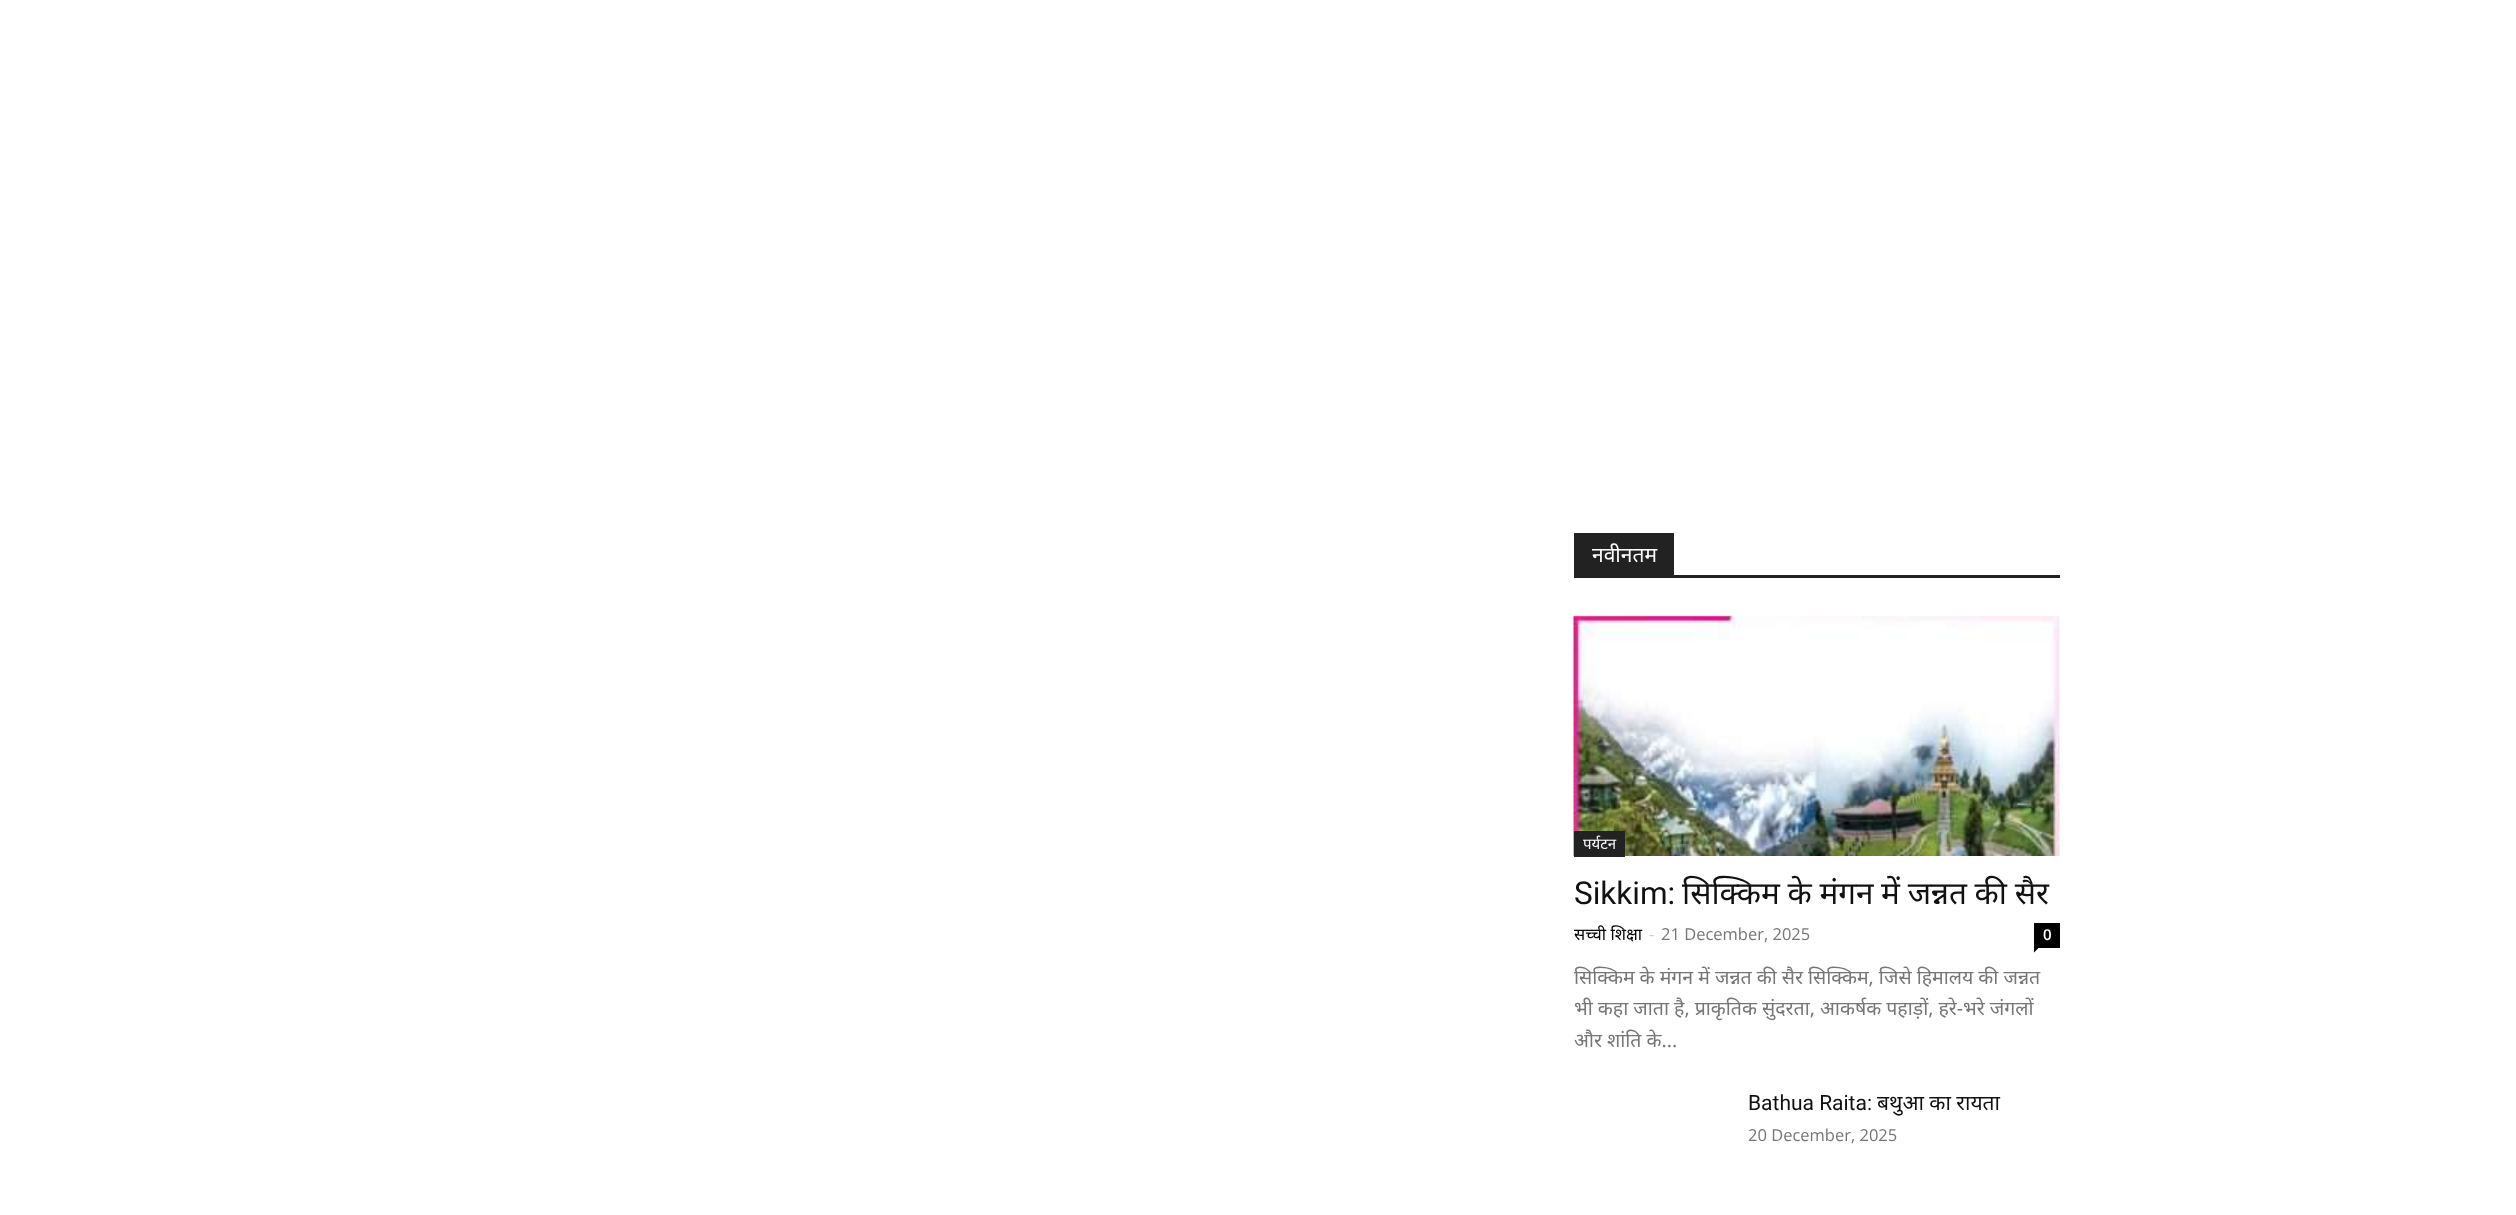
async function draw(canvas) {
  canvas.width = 2516
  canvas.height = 1215
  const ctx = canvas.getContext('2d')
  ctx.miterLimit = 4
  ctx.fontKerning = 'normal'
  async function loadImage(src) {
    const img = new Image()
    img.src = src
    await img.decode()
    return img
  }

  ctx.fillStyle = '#fff'
  ctx.fillRect(0, 0, 2516, 1215)
  ctx.fillStyle = '#222'
  ctx.fillRect(1574, 575, 486, 3)
  ctx.fillRect(1574, 533, 100, 42)
  ctx.font = '21px Noto Sans'
  ctx.fillStyle = '#fff'
  ctx.fillText('नवीनतम', 1592, 562)
  ctx.drawImage(await loadImage('image0.png'), 1573, 615, 487, 241)
  ctx.fillStyle = '#222'
  ctx.fillRect(1574, 831, 51, 26)
  ctx.font = '15px Noto Sans'
  ctx.fillStyle = '#fff'
  ctx.fillText('पर्यटन', 1583, 849)
  ctx.font = '31.5px Roboto'
  ctx.fillStyle = '#111'
  ctx.fillText('Sikkim:', 1574, 904)
  ctx.wordSpacing = '-0.5px'
  ctx.font = '31.5px Noto Sans'
  ctx.fillText('सिक्किम के मंगन में जन्नत की सैर', 1682, 904)
  ctx.wordSpacing = '0px'
  ctx.font = '16.5px Noto Sans'
  ctx.fillStyle = '#000'
  ctx.fillText('सच्ची शिक्षा', 1574, 940)
  ctx.font = '16.5px Open Sans'
  ctx.fillStyle = '#ccc'
  ctx.fillText('-', 1649, 940)
  ctx.fillStyle = '#767676'
  ctx.fillText('21 December, 2025', 1661, 940)
  ctx.fillStyle = '#000'
  ctx.fillRect(2034, 923, 26, 25)
  ctx.font = '600 15px Open Sans'
  ctx.fillStyle = '#fff'
  ctx.fillText('0', 2043, 940)
  ctx.fillStyle = '#000'
  ctx.beginPath()
  ctx.moveTo(2034, 948)
  ctx.lineTo(2038.5, 948)
  ctx.lineTo(2034, 952.5)
  ctx.closePath()
  ctx.fill()
  ctx.save()
  ctx.beginPath()
  ctx.rect(1574, 533, 486, 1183)
  ctx.clip()
  ctx.font = '19.5px Noto Sans'
  ctx.fillStyle = '#767676'
  ctx.fillText('सिक्किम के मंगन में जन्नत की सैर सिक्किम, जिसे हिमालय की जन्नत', 1574, 984)
  ctx.fillText('भी कहा जाता है, प्राकृतिक सुंदरता, आकर्षक पहाड़ों, हरे-भरे जंगलों', 1574, 1015)
  ctx.restore()
  ctx.font = '19.5px Noto Sans'
  ctx.fillStyle = '#767676'
  ctx.fillText('और शांति के...', 1574, 1047)
  ctx.font = '21px Roboto'
  ctx.fillStyle = '#111'
  ctx.fillText('Bathua Raita:', 1748, 1110)
  ctx.font = '21px Noto Sans'
  ctx.fillText('बथुआ का रायता', 1877, 1110)
  ctx.font = '16.5px Open Sans'
  ctx.fillStyle = '#767676'
  ctx.fillText('20 December, 2025', 1748, 1141)
}

draw(document.querySelector('canvas'))
